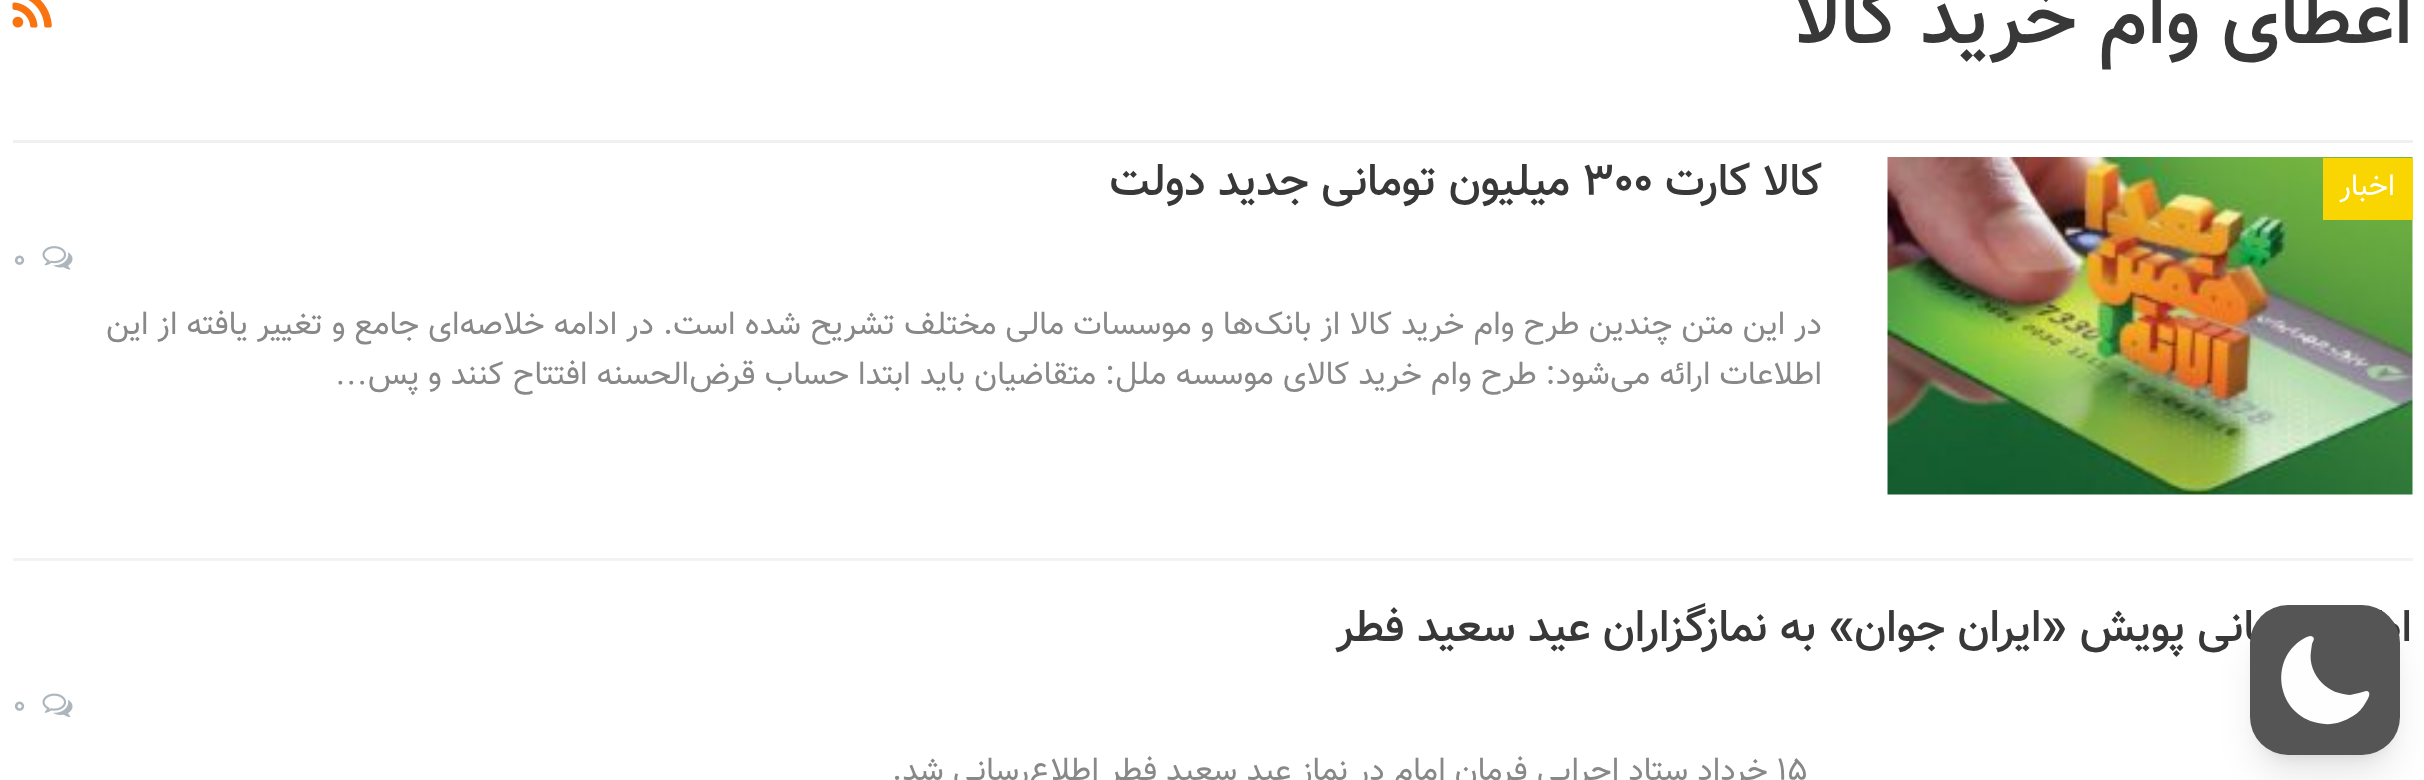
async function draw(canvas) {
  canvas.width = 2424
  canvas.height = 780
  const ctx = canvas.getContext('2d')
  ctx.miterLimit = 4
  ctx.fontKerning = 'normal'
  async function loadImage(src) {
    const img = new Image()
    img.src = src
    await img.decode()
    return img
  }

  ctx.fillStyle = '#fff'
  ctx.fillRect(0, 0, 2424, 780)
  ctx.fillStyle = '#f0f0f0'
  ctx.fillRect(13, 140, 2400, 3)
  ctx.direction = 'rtl'
  ctx.font = '500 80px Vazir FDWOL'
  ctx.fillStyle = '#383838'
  ctx.fillText('اعطای وام خرید کالا', 2413, 43)
  ctx.drawImage(await loadImage('image0.png'), 12, 0, 40, 28)
  ctx.drawImage(await loadImage('image1.png'), 1887, 157, 526, 338)
  ctx.fillStyle = '#f9d501'
  ctx.fillRect(2323, 158, 90, 62)
  ctx.font = '30px Vazir FDWOL'
  ctx.fillStyle = '#fff'
  ctx.fillText('اخبار', 2395, 195)
  ctx.font = '500 45px Vazir FDWOL'
  ctx.fillStyle = '#383838'
  ctx.fillText('کالا کارت', 1822, 195)
  ctx.direction = 'ltr'
  ctx.fillText('۳۰۰', 1582, 195)
  ctx.direction = 'rtl'
  ctx.fillText('میلیون تومانی جدید دولت', 1570, 195)
  ctx.drawImage(await loadImage('image2.png'), 42, 246, 31, 24)
  ctx.direction = 'ltr'
  ctx.font = '30px Vazir FDWOL'
  ctx.fillStyle = '#adb5bd'
  ctx.fillText('0', 13, 268)
  ctx.direction = 'rtl'
  ctx.font = '32.5px Vazir FDWOL'
  ctx.fillStyle = '#888'
  ctx.fillText('در این متن چندین طرح وام خرید کالا از بانک‌ها و موسسات مالی مختلف تشریح شده است. در ادامه خلاصه‌ای جامع و تغییر یافته از این', 1822, 334)
  ctx.fillText('اطلاعات ارائه می‌شود:', 1822, 384)
  ctx.fillText('طرح وام خرید کالای موسسه ملل: متقاضیان باید ابتدا حساب قرض‌الحسنه افتتاح کنند و پس', 1537, 384)
  ctx.direction = 'ltr'
  ctx.font = '32.5px Liberation Serif'
  ctx.fillText('…', 335, 384)
  ctx.fillStyle = '#f1f3f5'
  ctx.fillRect(13, 558, 2400, 3)
  ctx.direction = 'rtl'
  ctx.font = '500 45px Vazir FDWOL'
  ctx.fillStyle = '#383838'
  ctx.fillText('اطلاع رسانی پویش «ایران جوان» به نمازگزاران عید سعید فطر', 2412, 641)
  ctx.drawImage(await loadImage('image3.png'), 42, 693, 31, 25)
  ctx.direction = 'ltr'
  ctx.font = '30px Vazir FDWOL'
  ctx.fillStyle = '#adb5bd'
  ctx.fillText('0', 13, 714)
  ctx.font = '32.5px Vazir FDWOL'
  ctx.fillStyle = '#888'
  ctx.fillText('۱۵', 1777, 780)
  ctx.direction = 'rtl'
  ctx.fillText('خرداد ستاد اجرایی فرمان امام در نماز عید سعید فطر اطلاع‌رسانی شد.', 1768, 780)
  ctx.fillStyle = '#0000001a'
  ctx.filter = 'blur(7.5px)'
  ctx.beginPath()
  ctx.roundRect(2260, 625, 130, 130, 28)
  ctx.fill()
  ctx.filter = 'none'
  ctx.filter = 'blur(19px)'
  ctx.beginPath()
  ctx.roundRect(2258, 638, 135, 135, 30)
  ctx.fill()
  ctx.filter = 'none'
  ctx.fillStyle = '#555'
  ctx.beginPath()
  ctx.roundRect(2250, 605, 150, 150, 38)
  ctx.fill()
  ctx.fillStyle = '#fefefe'
  ctx.beginPath()
  ctx.moveTo(2313, 637)
  ctx.bezierCurveTo(2315, 639, 2313, 641, 2312, 644)
  ctx.lineTo(2311, 651)
  ctx.bezierCurveTo(2309, 663, 2314, 675, 2322, 683)
  ctx.bezierCurveTo(2330, 691, 2339, 694, 2350, 695)
  ctx.lineTo(2359, 693)
  ctx.lineTo(2366, 691)
  ctx.bezierCurveTo(2373, 691, 2367, 701, 2366, 702)
  ctx.bezierCurveTo(2363, 708, 2358, 713, 2353, 716)
  ctx.bezierCurveTo(2342, 723, 2330, 726, 2318, 723)
  ctx.bezierCurveTo(2277, 715, 2268, 660, 2303, 639)
  ctx.bezierCurveTo(2305, 638, 2310, 634, 2313, 637)
  ctx.closePath()
  ctx.fill('evenodd')
}

draw(document.querySelector('canvas'))
